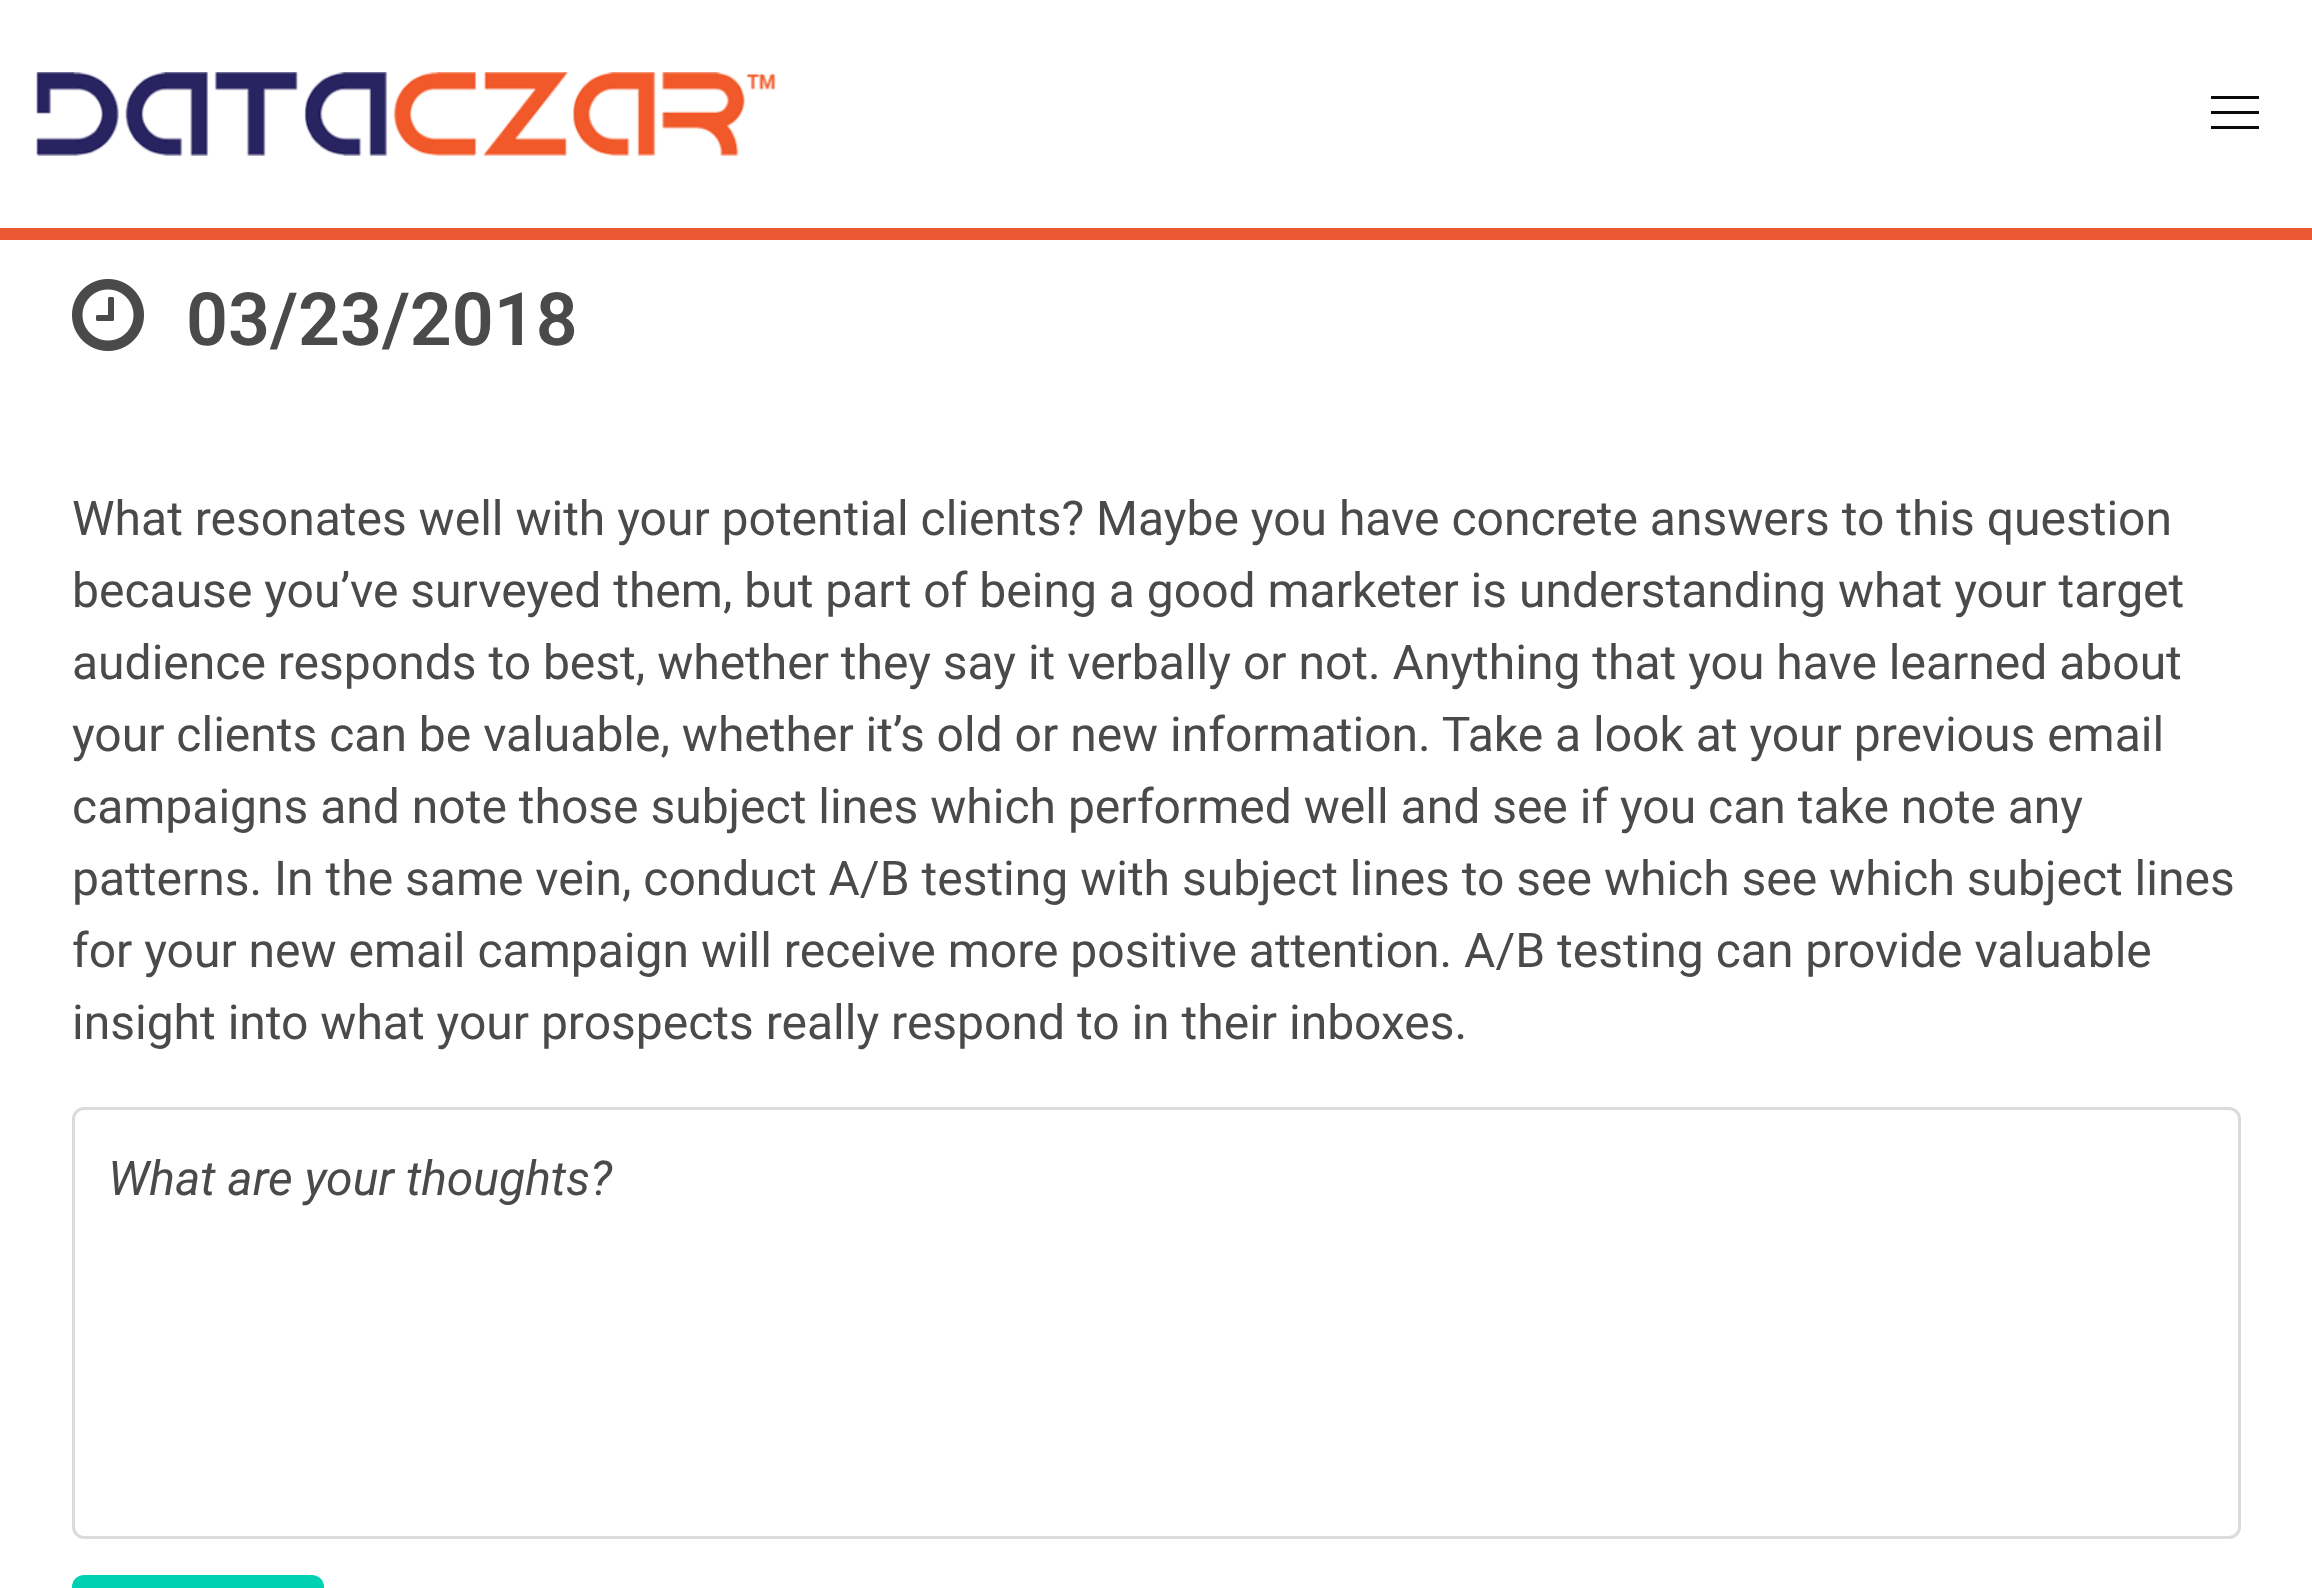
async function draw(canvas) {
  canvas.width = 2312
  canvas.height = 1588
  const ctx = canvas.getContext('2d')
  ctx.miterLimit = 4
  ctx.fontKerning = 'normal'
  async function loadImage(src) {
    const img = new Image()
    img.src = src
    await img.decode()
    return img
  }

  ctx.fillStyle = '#fff'
  ctx.fillRect(0, 0, 2312, 1588)
  ctx.fillStyle = '#eb5933'
  ctx.fillRect(0, 228, 2312, 12)
  ctx.drawImage(await loadImage('image0.png'), 36, 72, 740, 84)
  ctx.fillStyle = '#0a0a0a'
  ctx.fillRect(2211, 96, 48, 3)
  ctx.fillRect(2211, 111, 48, 3)
  ctx.fillRect(2211, 126, 48, 3)
  ctx.drawImage(await loadImage('image1.png'), 72, 279, 72, 72)
  ctx.font = '600 73.5px Roboto'
  ctx.fillStyle = '#4a4a4a'
  ctx.fillText('03/23/2018', 186, 345)
  ctx.font = '48px Roboto'
  ctx.fillText('What resonates well with your potential clients? Maybe you have concrete answers to this question', 72, 535)
  ctx.fillText('because you’ve surveyed them, but part of being a good marketer is understanding what your target', 72, 607)
  ctx.fillText('audience responds to best, whether they say it verbally or not. Anything that you have learned about', 72, 679)
  ctx.fillText('your clients can be valuable, whether it’s old or new information. Take a look at your previous email', 72, 751)
  ctx.fillText('campaigns and note those subject lines which performed well and see if you can take note any', 72, 823)
  ctx.fillText('patterns. In the same vein, conduct A/B testing with subject lines to see which see which subject lines', 72, 895)
  ctx.fillText('for your new email campaign will receive more positive attention. A/B testing can provide valuable', 72, 967)
  ctx.fillText('insight into what your prospects really respond to in their inboxes.', 72, 1039)
  ctx.beginPath()
  ctx.roundRect(73.5, 1108.5, 2166, 429, 10.5)
  ctx.strokeStyle = '#dbdbdb'
  ctx.lineWidth = 3
  ctx.stroke()
  ctx.font = 'italic 48px Roboto'
  ctx.fillText('What are your thoughts?', 108, 1195)
  ctx.fillStyle = '#00d1b2'
  ctx.beginPath()
  ctx.roundRect(72, 1575, 252, 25, 12)
  ctx.fill()
}

draw(document.querySelector('canvas'))
